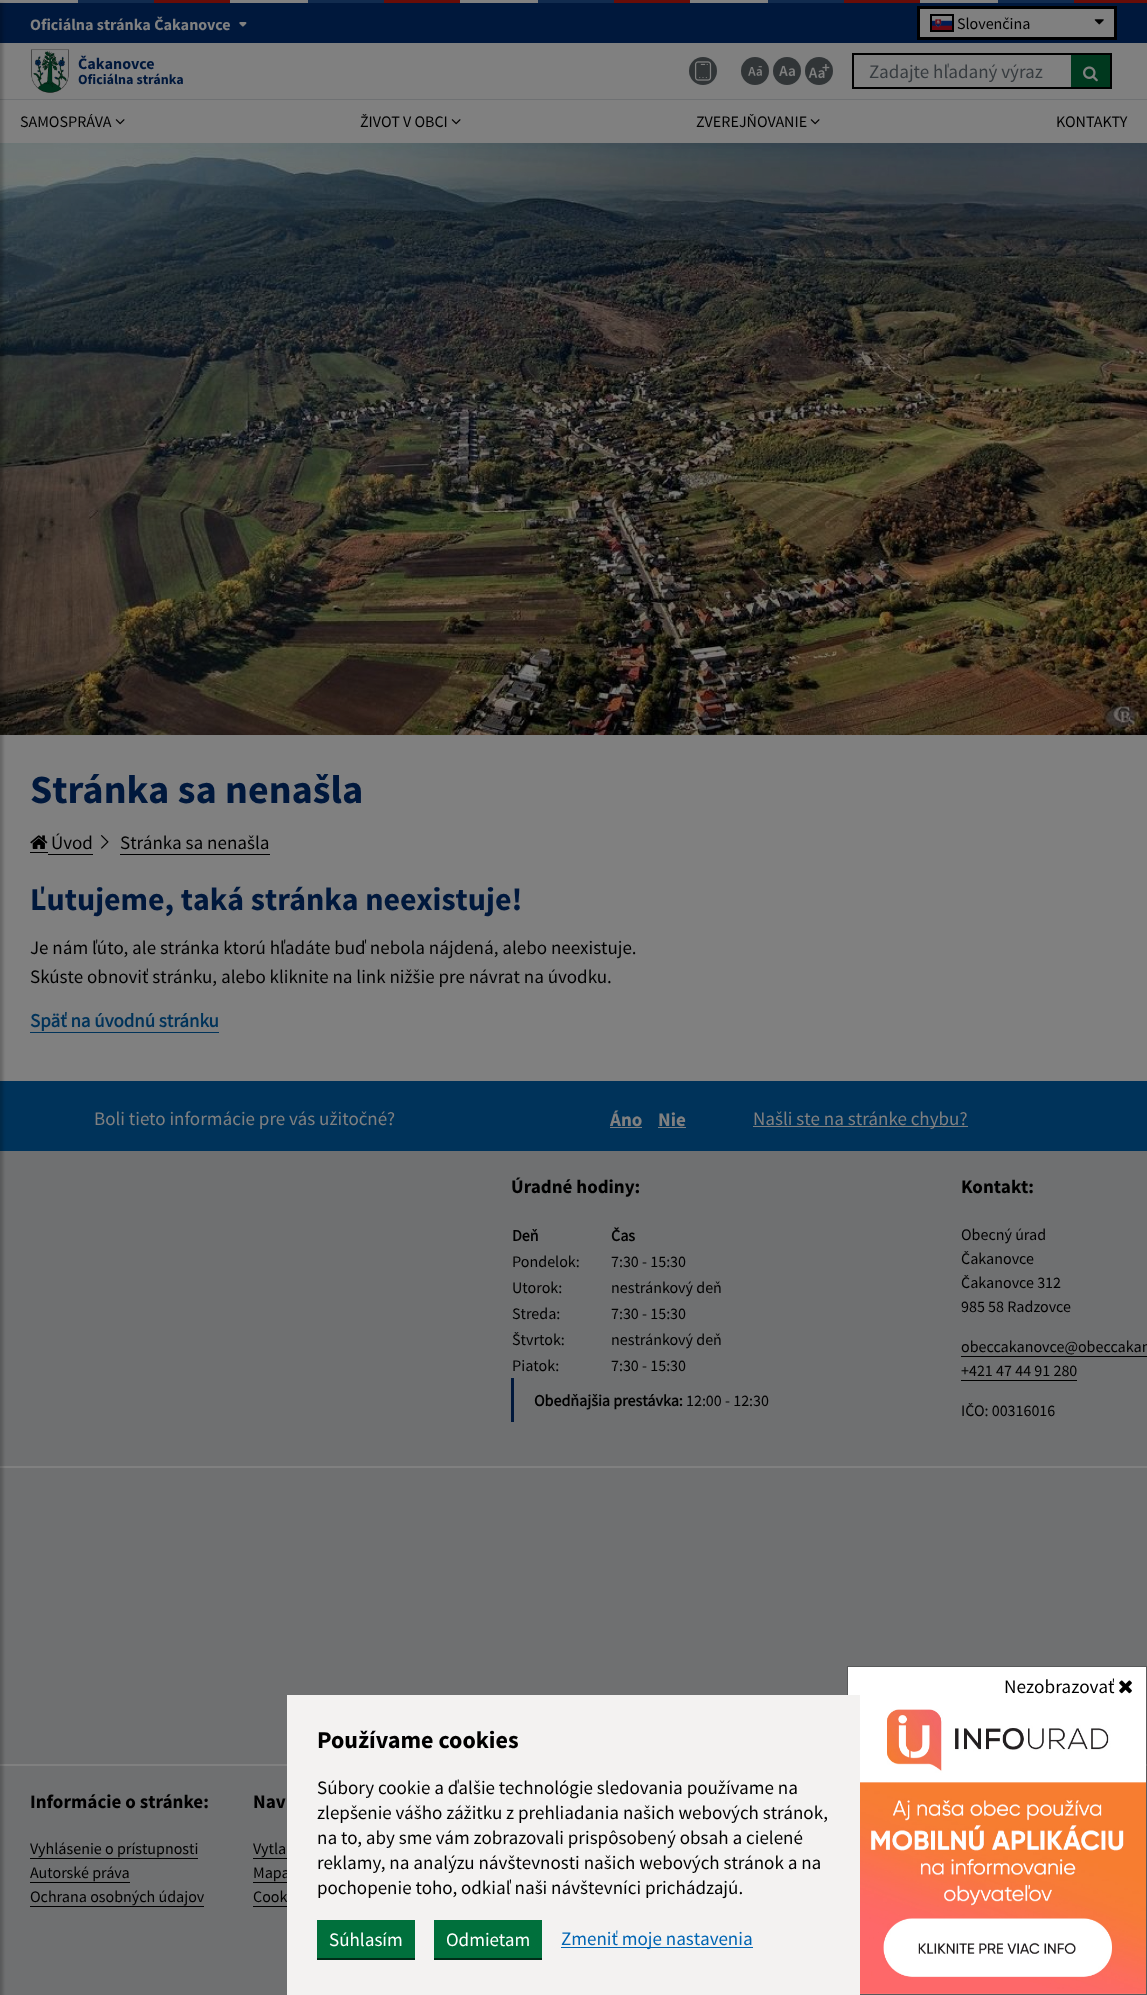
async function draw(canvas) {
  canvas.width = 1147
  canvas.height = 1995
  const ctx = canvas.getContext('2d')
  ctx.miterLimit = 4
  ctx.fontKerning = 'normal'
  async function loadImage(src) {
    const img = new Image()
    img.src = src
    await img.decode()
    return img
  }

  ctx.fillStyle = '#808080'
  ctx.fillRect(0, 0, 1147, 1995)
  ctx.fillStyle = '#00183c'
  ctx.fillRect(0, 3, 1147, 40)
  ctx.fillStyle = '#6f7173'
  ctx.fillRect(0, 99, 1147, 1)
  ctx.drawImage(await loadImage('image11.png'), 0, 143, 1147, 592)
  ctx.fillStyle = '#00335a'
  ctx.fillRect(0, 1081, 1147, 70)
  ctx.fillStyle = '#6f7071'
  ctx.fillRect(0, 1151, 1147, 844)
  ctx.fillStyle = '#808080'
  ctx.fillRect(0, 1466, 1147, 2)
  ctx.fillRect(0, 1764, 1147, 2)
  ctx.fillStyle = '#00000033'
  ctx.filter = 'blur(1.5px)'
  ctx.beginPath()
  ctx.rect(-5, 3, 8, 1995)
  ctx.fill()
  ctx.filter = 'none'
  ctx.drawImage(await loadImage('image0.png'), 78, 0, 1069, 3)
  ctx.font = 'bold 16px Source Sans Pro'
  ctx.fillStyle = '#808080'
  ctx.fillText('Oficiálna stránka Čakanovce', 30, 30)
  ctx.drawImage(await loadImage('image1.png'), 239, 22, 8, 5)
  ctx.beginPath()
  ctx.rect(918.5, 7.5, 197, 31)
  ctx.fill()
  ctx.strokeStyle = '#000'
  ctx.lineWidth = 3
  ctx.stroke()
  ctx.lineWidth = 2
  ctx.strokeRect(931, 15, 22, 16)
  ctx.font = '16px "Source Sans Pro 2"'
  ctx.fillStyle = '#000'
  ctx.fillText('Slovenčina', 957, 29)
  ctx.drawImage(await loadImage('image2.png'), 932, 19, 20, 11)
  ctx.drawImage(await loadImage('image3.png'), 1094, 19, 10, 6)
  ctx.drawImage(await loadImage('image4.png'), 31, 49, 38, 44)
  ctx.font = 'bold 16px "Source Sans Pro 2"'
  ctx.fillStyle = '#00183c'
  ctx.fillText('Čakanovce', 78, 69)
  ctx.font = 'bold 14px "Source Sans Pro 2"'
  ctx.fillText('Oficiálna stránka', 78, 84)
  ctx.fillStyle = '#313537'
  ctx.beginPath()
  ctx.arc(703, 71, 14, 0, 2 * Math.PI)
  ctx.fill()
  ctx.drawImage(await loadImage('image5.png'), 694, 61, 18, 20)
  ctx.beginPath()
  ctx.arc(755, 71, 14, 0, 2 * Math.PI)
  ctx.fill()
  ctx.drawImage(await loadImage('image6.png'), 748, 66, 14, 10)
  ctx.beginPath()
  ctx.arc(787, 71, 14, 0, 2 * Math.PI)
  ctx.fill()
  ctx.drawImage(await loadImage('image7.png'), 779, 65, 16, 12)
  ctx.beginPath()
  ctx.arc(819, 71, 14, 0, 2 * Math.PI)
  ctx.fill()
  ctx.drawImage(await loadImage('image8.png'), 808, 64, 22, 15)
  ctx.fillStyle = '#000'
  ctx.fillRect(852, 53, 260, 2)
  ctx.fillRect(852, 87, 219, 2)
  ctx.fillRect(852, 53, 2, 36)
  ctx.font = '19px "Source Sans Pro 2"'
  ctx.fillStyle = '#363b3f'
  ctx.fillText('Zadajte hľadaný výraz', 869, 78)
  ctx.fillStyle = '#00381e'
  ctx.fillRect(1071, 55, 39, 32)
  ctx.fillStyle = '#000'
  ctx.fillRect(1110, 53, 2, 36)
  ctx.fillRect(1071, 87, 41, 2)
  ctx.drawImage(await loadImage('image9.png'), 1083, 66, 15, 16)
  ctx.font = '16px "Source Sans Pro 2"'
  ctx.fillText('SAMOSPRÁVA', 20, 127)
  ctx.drawImage(await loadImage('image10.png'), 115, 119, 10, 6)
  ctx.fillText('ŽIVOT V OBCI', 360, 127)
  ctx.drawImage(await loadImage('image10.png'), 451, 119, 10, 6)
  ctx.fillText('ZVEREJŇOVANIE', 696, 127)
  ctx.drawImage(await loadImage('image10.png'), 810, 119, 10, 6)
  ctx.fillText('KONTAKTY', 1056, 127)
  ctx.font = 'bold 40px "Source Sans Pro 2"'
  ctx.fillStyle = '#00183c'
  ctx.fillText('Stránka sa nenašla', 30, 803)
  ctx.fillStyle = '#000'
  ctx.fillRect(30, 852, 18, 1)
  ctx.fillRect(48, 854, 45, 1)
  ctx.drawImage(await loadImage('image12.png'), 30, 835, 18, 14)
  ctx.font = '19px "Source Sans Pro 2"'
  ctx.fillText('Úvod', 51, 849)
  ctx.drawImage(await loadImage('image13.png'), 100, 835, 9, 14)
  ctx.fillText('Stránka sa nenašla', 120, 849)
  ctx.fillRect(120, 854, 150, 1)
  ctx.font = 'bold 32px "Source Sans Pro 2"'
  ctx.fillStyle = '#00183c'
  ctx.fillText('Ľutujeme, taká stránka neexistuje!', 30, 910)
  ctx.font = '19px "Source Sans Pro 2"'
  ctx.fillStyle = '#000'
  ctx.fillText('Je nám ľúto, ale stránka ktorú hľadáte buď nebola nájdená, alebo neexistuje.', 30, 954)
  ctx.fillText('Skúste obnoviť stránku, alebo kliknite na link nižšie pre návrat na úvodku.', 30, 983)
  ctx.font = 'bold 19px "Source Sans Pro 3"'
  ctx.fillStyle = '#00335a'
  ctx.fillText('Späť na úvodnú stránku', 30, 1027)
  ctx.fillRect(30, 1032, 189, 1)
  ctx.font = '19px Source Sans Pro'
  ctx.fillStyle = '#808080'
  ctx.fillText('Boli tieto informácie pre vás užitočné?', 94, 1125)
  ctx.font = 'bold 19px Source Sans Pro'
  ctx.fillText('Áno', 610, 1126)
  ctx.fillRect(610, 1127, 32, 1)
  ctx.fillText('Nie', 658, 1126)
  ctx.fillRect(658, 1127, 28, 1)
  ctx.fillRect(753, 1126, 215, 1)
  ctx.font = '19px Source Sans Pro'
  ctx.fillText('Našli ste na stránke chybu?', 753, 1125)
  ctx.font = 'bold 19px "Source Sans Pro 2"'
  ctx.fillStyle = '#000'
  ctx.fillText('Úradné hodiny:', 511, 1193)
  ctx.font = 'bold 16px "Source Sans Pro 3"'
  ctx.fillText('Deň', 512, 1241)
  ctx.fillText('Čas', 611, 1241)
  ctx.font = '16px "Source Sans Pro 2"'
  ctx.fillText('Pondelok:', 512, 1267)
  ctx.fillText('7:30 - 15:30', 611, 1267)
  ctx.fillText('Utorok:', 512, 1293)
  ctx.fillText('nestránkový deň', 611, 1293)
  ctx.fillText('Streda:', 512, 1319)
  ctx.fillText('7:30 - 15:30', 611, 1319)
  ctx.fillText('Štvrtok:', 512, 1345)
  ctx.fillText('nestránkový deň', 611, 1345)
  ctx.fillText('Piatok:', 512, 1371)
  ctx.fillText('7:30 - 15:30', 611, 1371)
  ctx.fillStyle = '#00183c'
  ctx.fillRect(511, 1378, 3, 44)
  ctx.font = 'bold 16px "Source Sans Pro 3"'
  ctx.fillStyle = '#000'
  ctx.fillText('Obedňajšia prestávka:', 534, 1406)
  ctx.font = '16px "Source Sans Pro 2"'
  ctx.fillText('12:00 - 12:30', 686, 1406)
  ctx.font = 'bold 19px "Source Sans Pro 2"'
  ctx.fillText('Kontakt:', 961, 1193)
  ctx.font = '16px "Source Sans Pro 2"'
  ctx.fillText('Obecný úrad', 961, 1240)
  ctx.fillText('Čakanovce', 961, 1264)
  ctx.fillText('Čakanovce 312', 961, 1288)
  ctx.fillText('985 58 Radzovce', 961, 1312)
  ctx.font = '16px Source Sans Pro'
  ctx.fillText('obeccakanovce@obeccakan', 961, 1352)
  ctx.fillRect(961, 1356, 186, 1)
  ctx.fillText('+421 47 44 91 280', 961, 1376)
  ctx.fillRect(961, 1380, 116, 1)
  ctx.font = '16px "Source Sans Pro 2"'
  ctx.fillText('IČO: 00316016', 961, 1416)
  ctx.font = 'bold 19px "Source Sans Pro 2"'
  ctx.fillText('Informácie o stránke:', 30, 1808)
  ctx.font = '16px Source Sans Pro'
  ctx.fillText('Vyhlásenie o prístupnosti', 30, 1854)
  ctx.fillRect(30, 1858, 168, 1)
  ctx.fillText('Autorské práva', 30, 1878)
  ctx.fillRect(30, 1882, 100, 1)
  ctx.fillText('Ochrana osobných údajov', 30, 1902)
  ctx.fillRect(30, 1906, 174, 1)
  ctx.font = 'bold 19px "Source Sans Pro 2"'
  ctx.fillText('Nav', 253, 1808)
  ctx.font = '16px Source Sans Pro'
  ctx.fillText('Vytla', 253, 1854)
  ctx.fillRect(253, 1858, 34, 1)
  ctx.fillText('Mapa', 253, 1878)
  ctx.fillRect(253, 1882, 34, 1)
  ctx.fillText('Cook', 253, 1902)
  ctx.fillRect(253, 1906, 34, 1)
  ctx.fillStyle = '#fff'
  ctx.fillRect(848, 1667, 298, 327)
  ctx.strokeStyle = '#00000033'
  ctx.lineWidth = 1
  ctx.strokeRect(847.5, 1666.5, 299, 328)
  ctx.font = '19.25px "Source Sans Pro 2"'
  ctx.fillStyle = '#000'
  ctx.fillText('Nezobrazovať', 1004, 1693)
  ctx.drawImage(await loadImage('image14.png'), 1119, 1680, 13, 14)
  ctx.drawImage(await loadImage('image15.png'), 860, 1709, 286, 285)
  ctx.fillStyle = '#f3f2f1'
  ctx.fillRect(287, 1695, 573, 300)
  ctx.font = 'bold 24px Source Sans Pro'
  ctx.fillStyle = '#000'
  ctx.fillText('Používame cookies', 317, 1748)
  ctx.font = '19px Source Sans Pro'
  ctx.fillText('Súbory cookie a ďalšie technológie sledovania používame na', 317, 1794)
  ctx.fillText('zlepšenie vášho zážitku z prehliadania našich webových stránok,', 317, 1819)
  ctx.fillText('na to, aby sme vám zobrazovali prispôsobený obsah a cielené', 317, 1844)
  ctx.fillText('reklamy, na analýzu návštevnosti našich webových stránok a na', 317, 1869)
  ctx.fillText('pochopenie toho, odkiaľ naši návštevníci prichádzajú.', 317, 1894)
  ctx.fillStyle = '#002d18'
  ctx.fillRect(317, 1958, 98, 2)
  ctx.fillStyle = '#00703c'
  ctx.fillRect(317, 1920, 98, 38)
  ctx.fillStyle = '#fff'
  ctx.fillText('Súhlasím', 329, 1946)
  ctx.fillStyle = '#002d18'
  ctx.fillRect(434, 1958, 108, 2)
  ctx.fillStyle = '#00703c'
  ctx.fillRect(434, 1920, 108, 38)
  ctx.fillStyle = '#fff'
  ctx.fillText('Odmietam', 446, 1946)
  ctx.fillStyle = '#0065b3'
  ctx.fillRect(561, 1947, 192, 1)
  ctx.fillText('Zmeniť moje nastavenia', 561, 1945)
}

draw(document.querySelector('canvas'))
